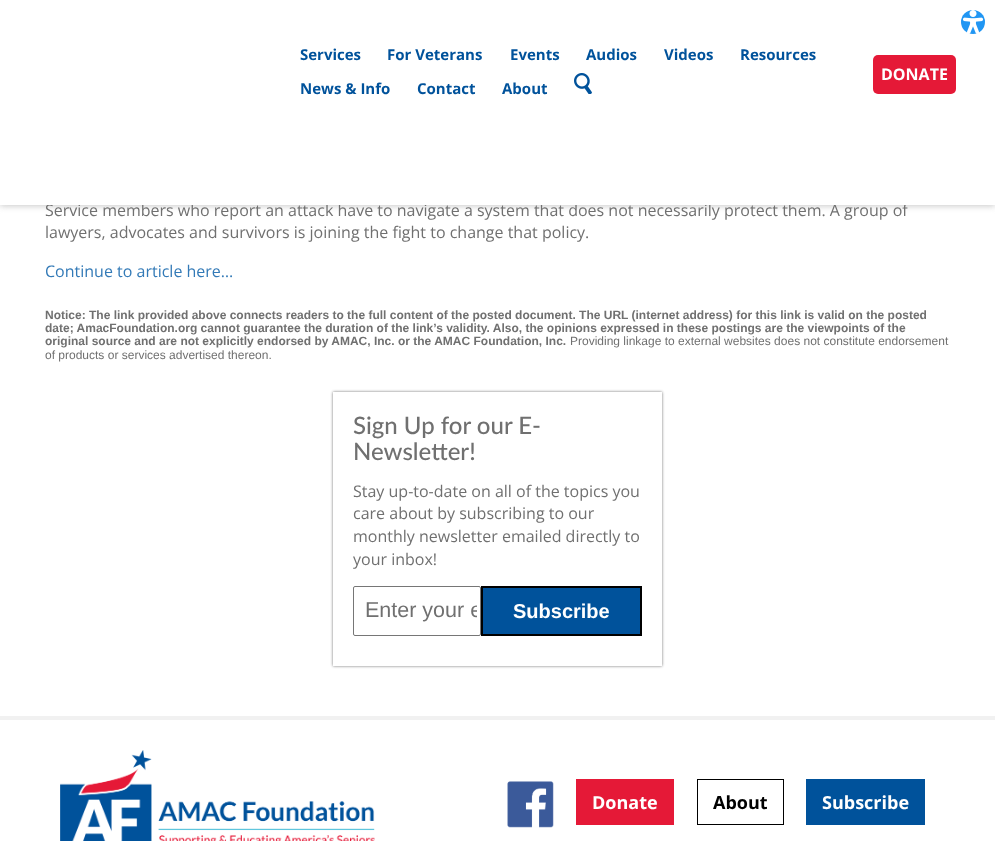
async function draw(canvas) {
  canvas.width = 995
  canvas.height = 841
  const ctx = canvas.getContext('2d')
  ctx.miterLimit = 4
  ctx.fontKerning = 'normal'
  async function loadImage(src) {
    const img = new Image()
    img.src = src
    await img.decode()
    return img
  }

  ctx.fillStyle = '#fff'
  ctx.fillRect(0, 0, 995, 841)
  ctx.fillStyle = '#c9c9c9'
  ctx.filter = 'blur(3px)'
  ctx.beginPath()
  ctx.rect(0, 1, 995, 205)
  ctx.fill()
  ctx.filter = 'none'
  ctx.font = '16px Open Sans'
  ctx.fillStyle = '#707070'
  ctx.fillText('Service members who report an attack have to navigate a system that does not necessarily protect them. A group of', 45, 216)
  ctx.fillStyle = '#fff'
  ctx.fillRect(0, 0, 995, 205)
  ctx.fillStyle = '#2196f3'
  ctx.beginPath()
  ctx.arc(973, 22, 12, 0, 2 * Math.PI)
  ctx.fill()
  ctx.drawImage(await loadImage('image0.png'), 963, 10, 20, 24)
  ctx.font = 'bold 15px Open Sans'
  ctx.fillStyle = '#00529b'
  ctx.fillText('Services', 300, 60)
  ctx.fillText('For Veterans', 387, 60)
  ctx.fillText('Events', 510, 60)
  ctx.fillText('Audios', 586, 60)
  ctx.fillText('Videos', 664, 60)
  ctx.fillText('Resources', 740, 60)
  ctx.fillText('News & Info', 300, 94)
  ctx.fillText('Contact', 417, 94)
  ctx.fillText('About', 502, 94)
  ctx.drawImage(await loadImage('image1.png'), 574, 73, 18, 21)
  ctx.fillStyle = '#e51937'
  ctx.beginPath()
  ctx.roundRect(873, 55, 83, 39, 5)
  ctx.fill()
  ctx.font = 'bold 16px Open Sans'
  ctx.fillStyle = '#fff'
  ctx.fillText('DONATE', 881, 80)
  ctx.font = '16px Open Sans'
  ctx.fillStyle = '#707070'
  ctx.fillText('lawyers, advocates and survivors is joining the fight to change that policy.', 45, 238)
  ctx.fillStyle = '#337ab7'
  ctx.fillText('Continue to article here…', 45, 277)
  ctx.font = 'bold 12px Liberation Sans'
  ctx.fillStyle = '#707070'
  ctx.fillText('Notice: The link provided above connects readers to the full content of the posted document. The URL (internet address) for this link is valid on the posted', 45, 319)
  ctx.fillText('date; AmacFoundation.org cannot guarantee the duration of the link’s validity. Also, the opinions expressed in these postings are the viewpoints of the', 45, 332)
  ctx.fillText('original source and are not explicitly endorsed by AMAC, Inc. or the AMAC Foundation, Inc.', 45, 345)
  ctx.font = '12px Liberation Sans'
  ctx.fillText('Providing linkage to external websites does not constitute endorsement', 570, 345)
  ctx.fillText('of products or services advertised thereon.', 45, 359)
  ctx.save()
  ctx.beginPath()
  ctx.moveTo(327, 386)
  ctx.lineTo(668, 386)
  ctx.lineTo(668, 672)
  ctx.lineTo(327, 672)
  ctx.closePath()
  ctx.moveTo(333, 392)
  ctx.lineTo(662, 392)
  ctx.lineTo(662, 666)
  ctx.lineTo(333, 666)
  ctx.closePath()
  ctx.clip('evenodd')
  ctx.filter = 'blur(1.5px)'
  ctx.beginPath()
  ctx.rect(333, 392, 329, 274)
  ctx.fill()
  ctx.filter = 'none'
  ctx.restore()
  ctx.font = '500 24px Lato'
  ctx.fillText('Sign Up for our E-', 353, 434)
  ctx.fillText('Newsletter!', 353, 460)
  ctx.font = '16px Open Sans'
  ctx.fillText('Stay up-to-date on all of the topics you', 353, 497)
  ctx.fillText('care about by subscribing to our', 353, 519)
  ctx.fillText('monthly newsletter emailed directly to', 353, 542)
  ctx.fillText('your inbox!', 353, 565)
  ctx.beginPath()
  ctx.roundRect(353.5, 586.5, 127, 49, 1.5)
  ctx.strokeStyle = '#767676'
  ctx.stroke()
  ctx.save()
  ctx.beginPath()
  ctx.rect(365, 598, 112, 25)
  ctx.clip()
  ctx.font = '21.5px Liberation Sans'
  ctx.fillText('Enter your e', 365, 617)
  ctx.restore()
  ctx.fillStyle = '#00529b'
  ctx.beginPath()
  ctx.rect(482, 587, 159, 48)
  ctx.fill()
  ctx.strokeStyle = '#000'
  ctx.lineWidth = 2
  ctx.stroke()
  ctx.font = 'bold 20px Liberation Sans'
  ctx.fillStyle = '#fff'
  ctx.fillText('Subscribe', 513, 618)
  ctx.fillStyle = '#f1f1f1'
  ctx.fillRect(0, 716, 995, 4)
  ctx.drawImage(await loadImage('image2.png'), 60, 750, 315, 91)
  ctx.drawImage(await loadImage('image3.png'), 507, 781, 47, 47)
  ctx.fillStyle = '#e51937'
  ctx.fillRect(576, 779, 98, 46)
  ctx.font = 'bold 18px Open Sans'
  ctx.fillStyle = '#fff'
  ctx.fillText('Donate', 592, 809)
  ctx.lineWidth = 1
  ctx.strokeRect(697.5, 779.5, 86, 45)
  ctx.fillStyle = '#000'
  ctx.fillText('About', 713, 809)
  ctx.fillStyle = '#00529b'
  ctx.fillRect(806, 779, 119, 46)
  ctx.fillStyle = '#fff'
  ctx.fillText('Subscribe', 822, 809)
}

draw(document.querySelector('canvas'))
